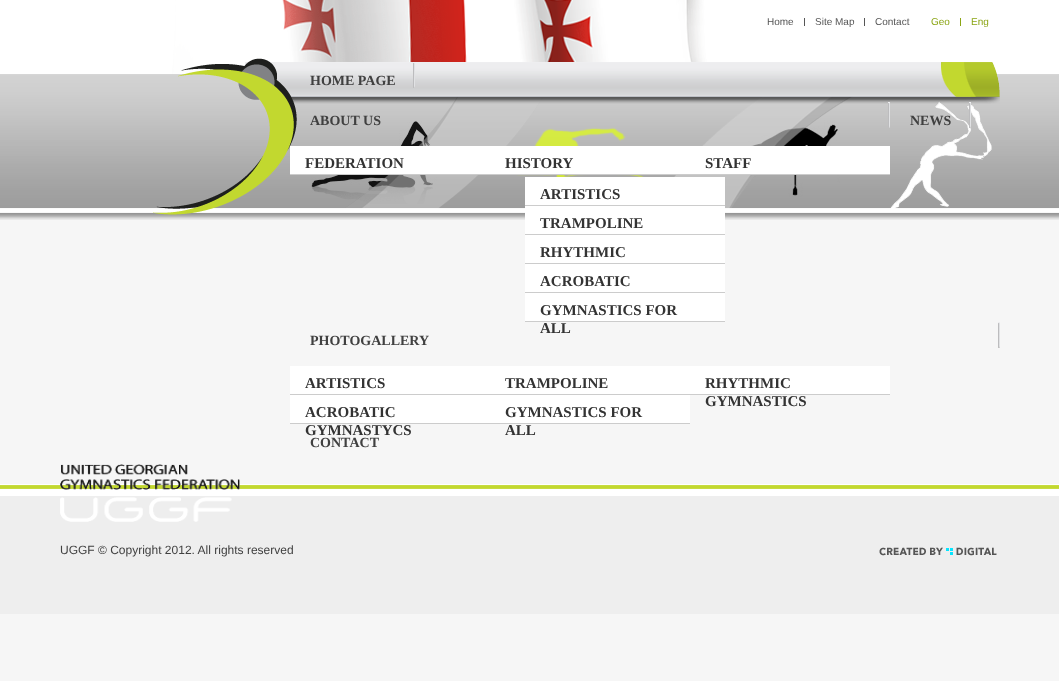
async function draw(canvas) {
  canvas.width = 1059
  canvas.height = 681
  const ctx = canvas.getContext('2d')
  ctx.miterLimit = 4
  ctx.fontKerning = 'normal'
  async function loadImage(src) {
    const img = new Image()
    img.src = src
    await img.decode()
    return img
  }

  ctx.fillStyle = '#f6f6f6'
  ctx.fillRect(0, 0, 1059, 681)
  ctx.drawImage(await loadImage('image0.png'), 0, 0, 1059, 220)
  ctx.drawImage(await loadImage('image1.png'), 153, 0, 847, 215)
  ctx.fillStyle = '#555'
  ctx.fillRect(804, 18, 1, 8)
  ctx.font = '10px Liberation Sans'
  ctx.fillText('Home', 767, 25)
  ctx.fillRect(864, 18, 1, 8)
  ctx.fillText('Site Map', 815, 25)
  ctx.fillText('Contact', 875, 25)
  ctx.fillStyle = '#8ba515'
  ctx.fillRect(960, 18, 1, 8)
  ctx.fillText('Geo', 931, 25)
  ctx.fillText('Eng', 971, 25)
  ctx.drawImage(await loadImage('image2.png'), 413, 63, 2, 25)
  ctx.font = 'bold 14px Liberation Serif'
  ctx.fillStyle = '#404040'
  ctx.fillText('HOME PAGE', 310, 85)
  ctx.drawImage(await loadImage('image3.png'), 888, 102, 2, 26)
  ctx.fillText('ABOUT US', 310, 125)
  ctx.fillStyle = '#fff'
  ctx.fillRect(290, 146, 600, 28)
  ctx.fillStyle = '#ccc'
  ctx.fillRect(290, 174, 600, 1)
  ctx.font = 'bold 15px Liberation Serif'
  ctx.fillStyle = '#333'
  ctx.fillText('FEDERATION', 305, 168)
  ctx.fillText('HISTORY', 505, 168)
  ctx.fillStyle = '#fff'
  ctx.fillRect(525, 177, 200, 28)
  ctx.fillStyle = '#ccc'
  ctx.fillRect(525, 205, 200, 1)
  ctx.fillStyle = '#333'
  ctx.fillText('ARTISTICS', 540, 199)
  ctx.fillStyle = '#fff'
  ctx.fillRect(525, 206, 200, 28)
  ctx.fillStyle = '#ccc'
  ctx.fillRect(525, 234, 200, 1)
  ctx.fillStyle = '#333'
  ctx.fillText('TRAMPOLINE', 540, 228)
  ctx.fillStyle = '#fff'
  ctx.fillRect(525, 235, 200, 28)
  ctx.fillStyle = '#ccc'
  ctx.fillRect(525, 263, 200, 1)
  ctx.fillStyle = '#333'
  ctx.fillText('RHYTHMIC', 540, 257)
  ctx.fillStyle = '#fff'
  ctx.fillRect(525, 264, 200, 28)
  ctx.fillStyle = '#ccc'
  ctx.fillRect(525, 292, 200, 1)
  ctx.fillStyle = '#333'
  ctx.fillText('ACROBATIC', 540, 286)
  ctx.fillStyle = '#fff'
  ctx.fillRect(525, 293, 200, 28)
  ctx.fillStyle = '#ccc'
  ctx.fillRect(525, 321, 200, 1)
  ctx.fillStyle = '#333'
  ctx.fillText('GYMNASTICS FOR', 540, 315)
  ctx.fillText('ALL', 540, 333)
  ctx.fillText('STAFF', 705, 168)
  ctx.drawImage(await loadImage('image3.png'), 969, 102, 2, 26)
  ctx.font = 'bold 14px Liberation Serif'
  ctx.fillStyle = '#404040'
  ctx.fillText('NEWS', 910, 125)
  ctx.drawImage(await loadImage('image3.png'), 998, 322, 2, 26)
  ctx.fillText('PHOTOGALLERY', 310, 345)
  ctx.fillStyle = '#fff'
  ctx.fillRect(290, 366, 600, 28)
  ctx.fillStyle = '#ccc'
  ctx.fillRect(290, 394, 600, 1)
  ctx.font = 'bold 15px Liberation Serif'
  ctx.fillStyle = '#333'
  ctx.fillText('ARTISTICS', 305, 388)
  ctx.fillText('TRAMPOLINE', 505, 388)
  ctx.fillText('RHYTHMIC', 705, 388)
  ctx.fillText('GYMNASTICS', 705, 406)
  ctx.fillStyle = '#fff'
  ctx.fillRect(290, 395, 400, 28)
  ctx.fillStyle = '#ccc'
  ctx.fillRect(290, 423, 400, 1)
  ctx.fillStyle = '#333'
  ctx.fillText('ACROBATIC', 305, 417)
  ctx.fillText('GYMNASTYCS', 305, 435)
  ctx.fillText('GYMNASTICS FOR', 505, 417)
  ctx.fillText('ALL', 505, 435)
  ctx.font = 'bold 14px Liberation Serif'
  ctx.fillStyle = '#404040'
  ctx.fillText('CONTACT', 310, 447)
  ctx.fillStyle = '#eee'
  ctx.fillRect(0, 496, 1059, 118)
  ctx.drawImage(await loadImage('image5.png'), 0, 484, 1059, 12)
  ctx.drawImage(await loadImage('image4.png'), 60, 464, 180, 58)
  ctx.font = '12px Liberation Sans'
  ctx.fillStyle = '#404040'
  ctx.fillText('UGGF © Copyright 2012. All rights reserved', 60, 554)
  ctx.drawImage(await loadImage('image6.png'), 879, 547, 118, 9)
}

draw(document.querySelector('canvas'))
